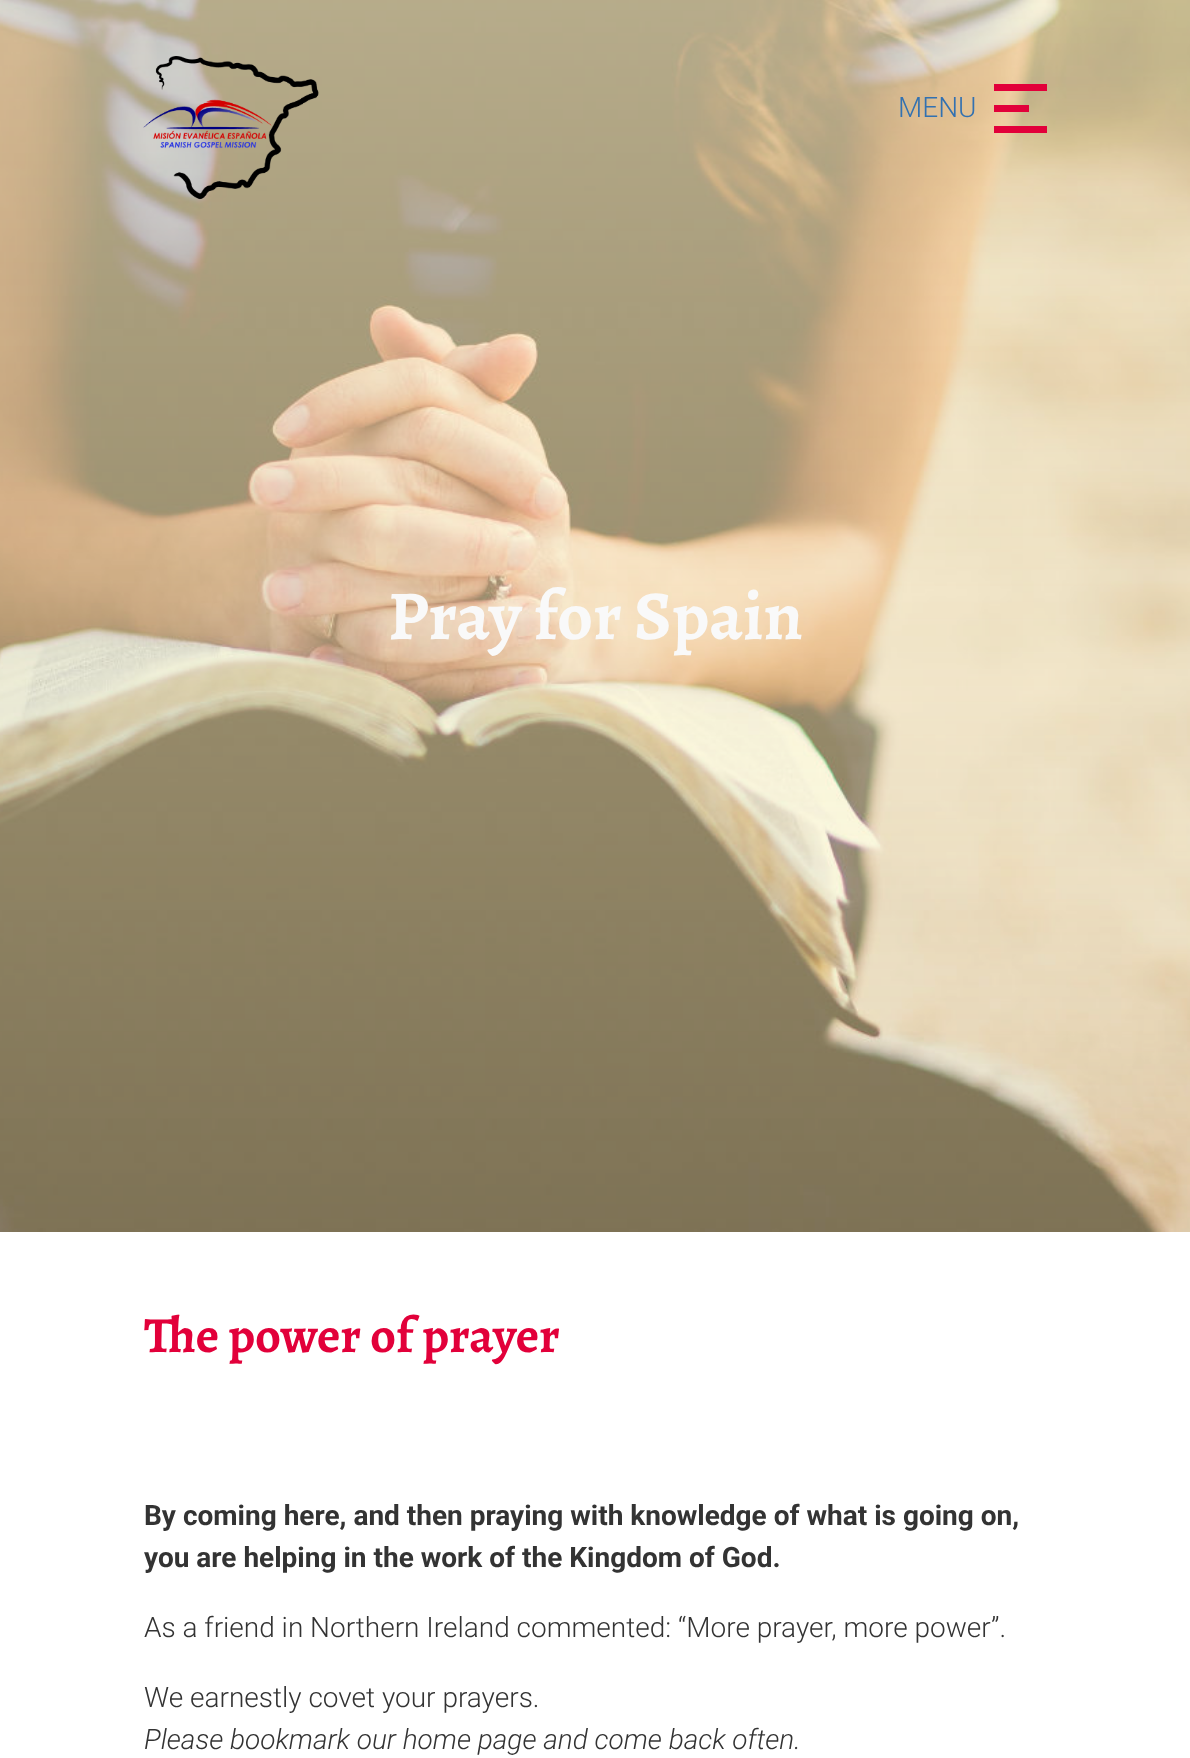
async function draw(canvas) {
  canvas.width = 1190
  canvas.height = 1758
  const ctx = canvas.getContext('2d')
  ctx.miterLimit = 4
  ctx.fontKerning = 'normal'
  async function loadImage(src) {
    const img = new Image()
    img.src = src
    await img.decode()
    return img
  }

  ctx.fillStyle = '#fff'
  ctx.fillRect(0, 0, 1190, 1758)
  ctx.drawImage(await loadImage('image1.png'), 0, 0, 1190, 1232)
  ctx.drawImage(await loadImage('image0.png'), 143, 56, 176, 144)
  ctx.font = '300 28px Roboto'
  ctx.fillStyle = '#3271b1'
  ctx.fillText('MENU', 898, 117)
  ctx.fillStyle = '#e2003a'
  ctx.fillRect(994, 84, 53, 7)
  ctx.fillRect(994, 105, 35, 7)
  ctx.fillRect(994, 126, 53, 7)
  ctx.font = 'bold 70px Alegreya'
  ctx.fillStyle = '#f9f9f9'
  ctx.fillText('Pray for Spain', 388, 639)
  ctx.font = 'bold 50.5px Alegreya'
  ctx.fillStyle = '#e2003a'
  ctx.fillText('The power of prayer', 144, 1352)
  ctx.font = 'bold 28px Roboto'
  ctx.fillStyle = '#333'
  ctx.fillText('By coming here, and then praying with knowledge of what is going on,', 144, 1525)
  ctx.fillText('you are helping in the work of the Kingdom of God.', 144, 1567)
  ctx.font = '300 28px Roboto'
  ctx.fillText('As a friend in Northern Ireland commented: “More prayer, more power”.', 144, 1637)
  ctx.fillText('We earnestly covet your prayers.', 144, 1707)
  ctx.font = 'italic 300 28px Roboto'
  ctx.fillText('Please bookmark our home page and come back often.', 144, 1749)
}

draw(document.querySelector('canvas'))
